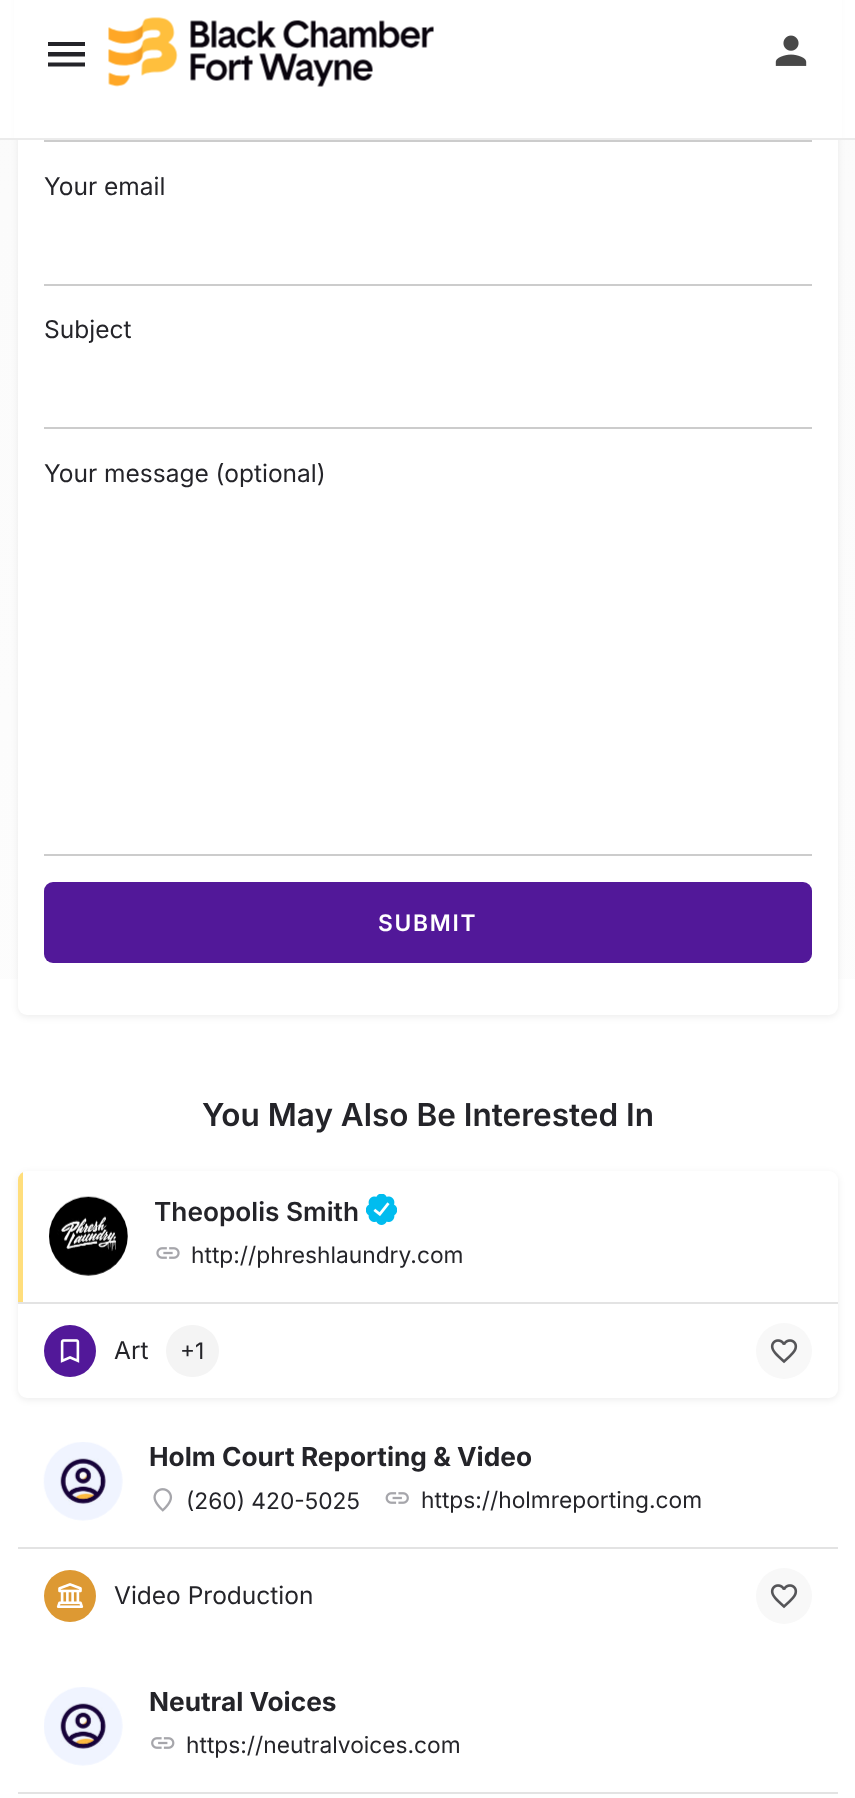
async function draw(canvas) {
  canvas.width = 855
  canvas.height = 1798
  const ctx = canvas.getContext('2d')
  ctx.miterLimit = 4
  ctx.fontKerning = 'normal'
  async function loadImage(src) {
    const img = new Image()
    img.src = src
    await img.decode()
    return img
  }
  let gradient

  ctx.fillStyle = '#fff'
  ctx.fillRect(0, 0, 855, 1798)
  gradient = ctx.createLinearGradient(428, -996, 428, 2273)
  gradient.addColorStop(0.05, '#f9f9f9')
  gradient.addColorStop(1, '#fff')
  ctx.fillStyle = gradient
  ctx.fillRect(0, 140, 855, 839)
  ctx.fillStyle = '#00000012'
  ctx.filter = 'blur(3.5px)'
  ctx.beginPath()
  ctx.roundRect(18, -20, 820, 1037, 9)
  ctx.fill()
  ctx.filter = 'none'
  ctx.fillStyle = '#fff'
  ctx.beginPath()
  ctx.roundRect(18, -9, 820, 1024, 9)
  ctx.fill()
  ctx.fillRect(14, 0, 828, 138)
  ctx.fillStyle = '#ebebeb'
  ctx.fillRect(0, 138, 855, 2)
  ctx.fillStyle = '#242429'
  ctx.beginPath()
  ctx.moveTo(48, 42)
  ctx.lineTo(85, 42)
  ctx.lineTo(85, 46)
  ctx.lineTo(48, 46)
  ctx.closePath()
  ctx.moveTo(48, 56.5)
  ctx.lineTo(48, 52)
  ctx.lineTo(85, 52)
  ctx.lineTo(85, 56.5)
  ctx.closePath()
  ctx.moveTo(48, 66.5)
  ctx.lineTo(48, 62.5)
  ctx.lineTo(85, 62.5)
  ctx.lineTo(85, 66.5)
  ctx.closePath()
  ctx.fill()
  ctx.drawImage(await loadImage('image0.png'), 108, 17, 326, 70)
  ctx.drawImage(await loadImage('image1.png'), 775, 35, 32, 31)
  ctx.fillStyle = '#ccc'
  ctx.fillRect(44, 140, 768, 2)
  ctx.font = '24.5px Inter'
  ctx.fillStyle = '#242429'
  ctx.fillText('Your email', 44, 195)
  ctx.fillStyle = '#ccc'
  ctx.fillRect(44, 284, 768, 2)
  ctx.fillStyle = '#242429'
  ctx.fillText('Subject', 44, 338)
  ctx.fillStyle = '#ccc'
  ctx.fillRect(44, 427, 768, 2)
  ctx.fillStyle = '#242429'
  ctx.fillText('Your message (optional)', 44, 482)
  ctx.fillStyle = '#ccc'
  ctx.fillRect(44, 854, 768, 2)
  ctx.fillStyle = '#521899'
  ctx.beginPath()
  ctx.roundRect(44, 882, 768, 81, 9)
  ctx.fill()
  ctx.letterSpacing = '1.75px'
  ctx.font = '600 22.75px Inter'
  ctx.fillStyle = '#fff'
  ctx.fillText('SUBMIT', 378, 931)
  ctx.letterSpacing = '0px'
  ctx.font = '600 31.5px Inter'
  ctx.fillStyle = '#242429'
  ctx.fillText('You May Also Be Interested In', 202, 1126)
  ctx.fillStyle = '#00000012'
  ctx.filter = 'blur(3.5px)'
  ctx.beginPath()
  ctx.roundRect(18, 1173, 820, 227, 9)
  ctx.fill()
  ctx.filter = 'none'
  ctx.fillStyle = '#fff'
  ctx.beginPath()
  ctx.roundRect(18, 1171, 820, 131, [9, 9, 0, 0])
  ctx.fill()
  ctx.save()
  ctx.beginPath()
  ctx.roundRect(18, 1171, 820, 227, 9)
  ctx.clip()
  ctx.fillStyle = '#ffde7c'
  ctx.fillRect(18, 1171, 5, 131)
  ctx.restore()
  ctx.drawImage(await loadImage('image2.png'), 49, 1196, 79, 80)
  ctx.font = '600 26.25px Inter'
  ctx.fillStyle = '#242429'
  ctx.fillText('Theopolis Smith', 154, 1221)
  ctx.drawImage(await loadImage('image3.png'), 366, 1194, 31, 31)
  ctx.drawImage(await loadImage('image4.png'), 156, 1247, 24, 12)
  ctx.font = '22.75px Inter'
  ctx.fillText('http://phreshlaundry.com', 191, 1263)
  ctx.fillStyle = '#fff'
  ctx.beginPath()
  ctx.roundRect(18, 1302, 820, 96, [0, 0, 9, 9])
  ctx.fill()
  ctx.fillStyle = '#e3e3e3'
  ctx.fillRect(18, 1302, 820, 2)
  ctx.fillStyle = '#521899'
  ctx.beginPath()
  ctx.arc(70, 1351, 26, 0, 2 * Math.PI)
  ctx.fill()
  ctx.drawImage(await loadImage('image5.png'), 60, 1339, 20, 24)
  ctx.font = '24.5px Inter'
  ctx.fillStyle = '#242429'
  ctx.fillText('Art', 114, 1359)
  ctx.fillStyle = '#f4f4f4'
  ctx.beginPath()
  ctx.roundRect(166, 1325, 53, 52, 26)
  ctx.fill()
  ctx.font = '22.75px Inter'
  ctx.fillStyle = '#242429'
  ctx.fillText('+1', 180, 1359)
  ctx.fillStyle = '#f8f8f8'
  ctx.beginPath()
  ctx.arc(784, 1351, 28, 0, 2 * Math.PI)
  ctx.fill()
  ctx.drawImage(await loadImage('image6.png'), 770, 1339, 28, 25)
  ctx.drawImage(await loadImage('image7.png'), 43, 1442, 80, 79)
  ctx.font = 'bold 26.25px Inter'
  ctx.fillStyle = '#242429'
  ctx.fillText('Holm Court Reporting & Video', 149, 1466)
  ctx.drawImage(await loadImage('image8.png'), 153, 1488, 20, 24)
  ctx.font = '22.75px Inter'
  ctx.fillText('(260) 420-5025', 186, 1509)
  ctx.drawImage(await loadImage('image9.png'), 385, 1492, 24, 12)
  ctx.fillText('https://holmreporting.com', 421, 1508)
  ctx.fillStyle = '#e3e3e3'
  ctx.fillRect(18, 1547, 820, 2)
  ctx.fillStyle = '#d93'
  ctx.beginPath()
  ctx.arc(70, 1596, 26, 0, 2 * Math.PI)
  ctx.fill()
  ctx.drawImage(await loadImage('image10.png'), 56, 1583, 28, 25)
  ctx.font = '24.5px Inter'
  ctx.fillStyle = '#242429'
  ctx.fillText('Video Production', 114, 1604)
  ctx.fillStyle = '#f8f8f8'
  ctx.beginPath()
  ctx.arc(784, 1596, 28, 0, 2 * Math.PI)
  ctx.fill()
  ctx.drawImage(await loadImage('image6.png'), 770, 1584, 28, 25)
  ctx.drawImage(await loadImage('image11.png'), 44, 1687, 79, 79)
  ctx.font = 'bold 26.25px Inter'
  ctx.fillStyle = '#242429'
  ctx.fillText('Neutral Voices', 149, 1711)
  ctx.drawImage(await loadImage('image12.png'), 151, 1737, 24, 12)
  ctx.font = '22.75px Inter'
  ctx.fillText('https://neutralvoices.com', 186, 1753)
  ctx.fillStyle = '#e3e3e3'
  ctx.fillRect(18, 1792, 820, 2)
}

draw(document.querySelector('canvas'))
